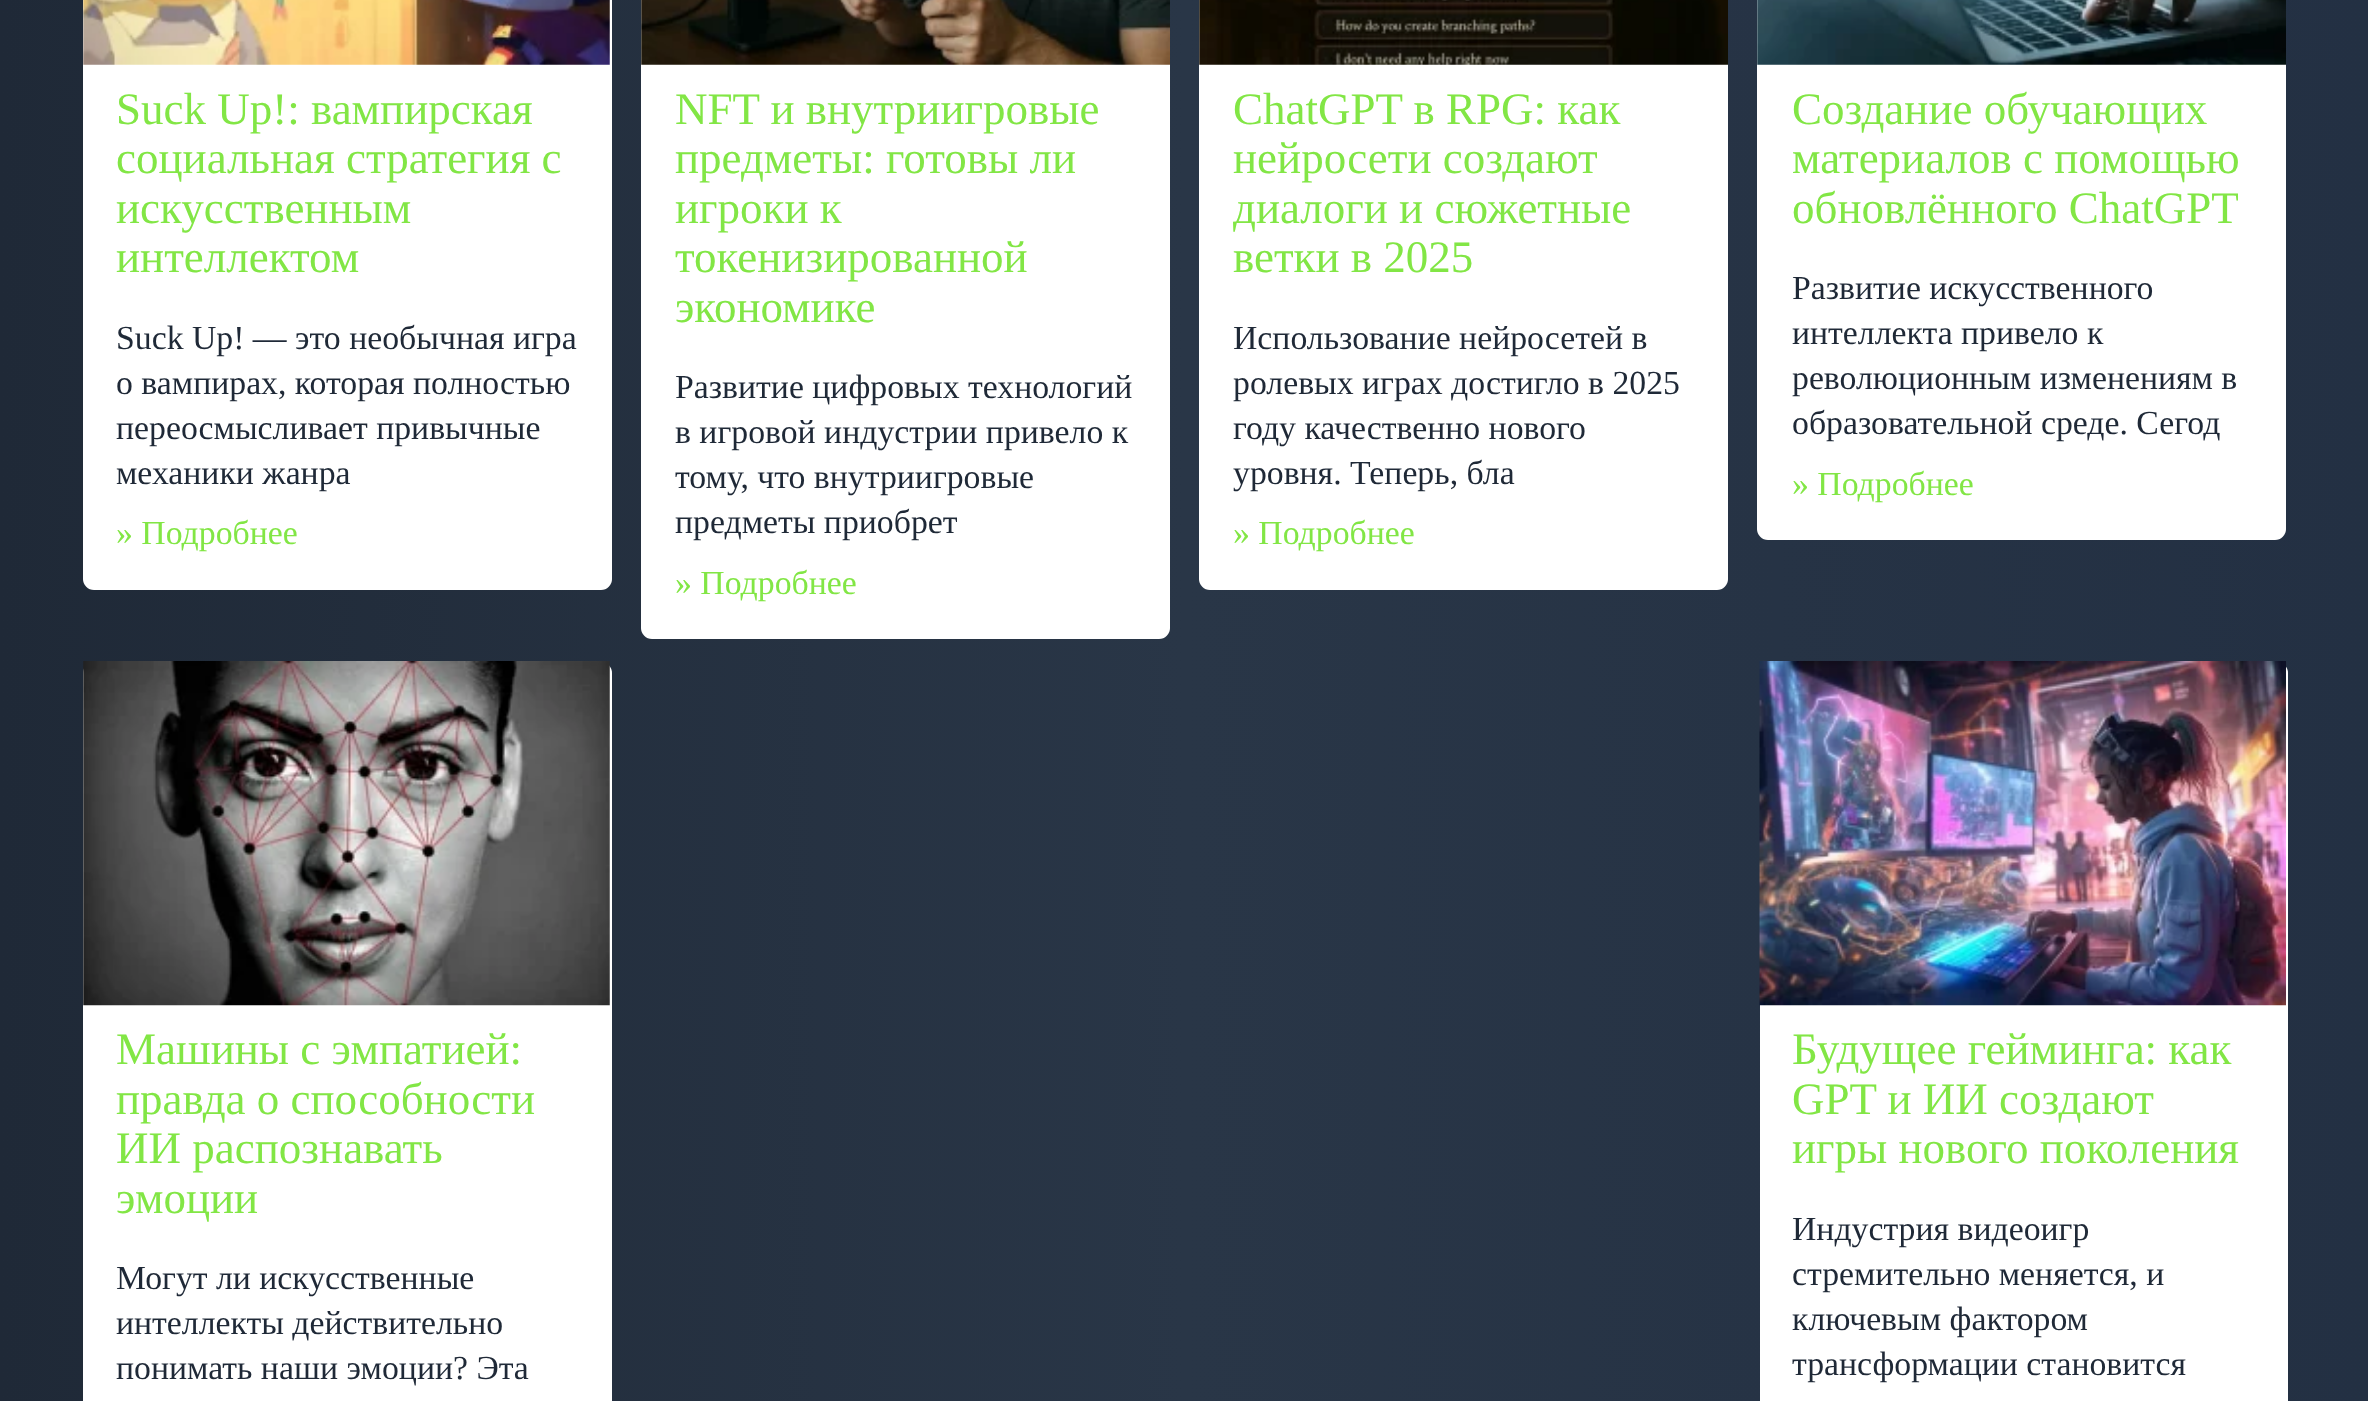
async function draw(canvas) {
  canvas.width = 2368
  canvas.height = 1401
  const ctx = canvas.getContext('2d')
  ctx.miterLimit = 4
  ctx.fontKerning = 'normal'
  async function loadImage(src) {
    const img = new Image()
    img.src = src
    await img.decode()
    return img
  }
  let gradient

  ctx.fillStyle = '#fff'
  ctx.fillRect(0, 0, 2368, 1401)
  gradient = ctx.createLinearGradient(0, 399, 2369, 399)
  gradient.addColorStop(0, '#1f2937')
  gradient.addColorStop(0.5, '#293647')
  gradient.addColorStop(1, '#233043')
  ctx.fillStyle = gradient
  ctx.fillRect(0, 0, 2368, 1401)
  ctx.fillStyle = '#fff'
  ctx.beginPath()
  ctx.roundRect(83, -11, 529, 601, 11)
  ctx.fill()
  ctx.drawImage(await loadImage('image0.png'), 83, 0, 527, 65)
  ctx.font = '45px Liberation Serif'
  ctx.fillStyle = '#82e645'
  ctx.fillText('Suck Up!: вампирская', 116, 124)
  ctx.fillText('социальная стратегия с', 116, 173)
  ctx.fillText('искусственным', 116, 223)
  ctx.fillText('интеллектом', 116, 272)
  ctx.font = '33.75px Liberation Serif'
  ctx.fillStyle = '#1f2937'
  ctx.fillText('Suck Up! — это необычная игра', 116, 349)
  ctx.fillText('о вампирах, которая полностью', 116, 394)
  ctx.fillText('переосмысливает привычные', 116, 439)
  ctx.fillText('механики жанра', 116, 484)
  ctx.fillStyle = '#82e645'
  ctx.fillText('» Подробнее', 116, 544)
  ctx.fillStyle = '#fff'
  ctx.beginPath()
  ctx.roundRect(641, -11, 529, 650, 11)
  ctx.fill()
  ctx.drawImage(await loadImage('image1.png'), 641, 0, 529, 65)
  ctx.font = '45px Liberation Serif'
  ctx.fillStyle = '#82e645'
  ctx.fillText('NFT и внутриигровые', 675, 124)
  ctx.fillText('предметы: готовы ли', 675, 173)
  ctx.fillText('игроки к', 675, 223)
  ctx.fillText('токенизированной', 675, 272)
  ctx.fillText('экономике', 675, 322)
  ctx.font = '33.75px Liberation Serif'
  ctx.fillStyle = '#1f2937'
  ctx.fillText('Развитие цифровых технологий', 675, 398)
  ctx.fillText('в игровой индустрии привело к', 675, 443)
  ctx.fillText('тому, что внутриигровые', 675, 488)
  ctx.fillText('предметы приобрет', 675, 533)
  ctx.fillStyle = '#82e645'
  ctx.fillText('» Подробнее', 675, 594)
  ctx.fillStyle = '#fff'
  ctx.beginPath()
  ctx.roundRect(1199, -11, 529, 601, 11)
  ctx.fill()
  ctx.drawImage(await loadImage('image2.png'), 1199, 0, 529, 65)
  ctx.font = '45px Liberation Serif'
  ctx.fillStyle = '#82e645'
  ctx.fillText('ChatGPT в RPG: как', 1233, 124)
  ctx.fillText('нейросети создают', 1233, 173)
  ctx.fillText('диалоги и сюжетные', 1233, 223)
  ctx.fillText('ветки в 2025', 1233, 272)
  ctx.font = '33.75px Liberation Serif'
  ctx.fillStyle = '#1f2937'
  ctx.fillText('Использование нейросетей в', 1233, 349)
  ctx.fillText('ролевых играх достигло в 2025', 1233, 394)
  ctx.fillText('году качественно нового', 1233, 439)
  ctx.fillText('уровня. Теперь, бла', 1233, 484)
  ctx.fillStyle = '#82e645'
  ctx.fillText('» Подробнее', 1233, 544)
  ctx.fillStyle = '#fff'
  ctx.beginPath()
  ctx.roundRect(1757, -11, 529, 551, 11)
  ctx.fill()
  ctx.drawImage(await loadImage('image3.png'), 1757, 0, 529, 65)
  ctx.font = '45px Liberation Serif'
  ctx.fillStyle = '#82e645'
  ctx.fillText('Создание обучающих', 1792, 124)
  ctx.fillText('материалов с помощью', 1792, 173)
  ctx.fillText('обновлённого ChatGPT', 1792, 223)
  ctx.font = '33.75px Liberation Serif'
  ctx.fillStyle = '#1f2937'
  ctx.fillText('Развитие искусственного', 1792, 299)
  ctx.fillText('интеллекта привело к', 1792, 344)
  ctx.fillText('революционным изменениям в', 1792, 389)
  ctx.fillText('образовательной среде. Сегод', 1792, 434)
  ctx.fillStyle = '#82e645'
  ctx.fillText('» Подробнее', 1792, 495)
  ctx.fillStyle = '#fff'
  ctx.beginPath()
  ctx.roundRect(83, 662, 529, 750, 11)
  ctx.fill()
  ctx.drawImage(await loadImage('image4.png'), 83, 661, 527, 345)
  ctx.font = '45px Liberation Serif'
  ctx.fillStyle = '#82e645'
  ctx.fillText('Машины с эмпатией:', 116, 1064)
  ctx.fillText('правда о способности', 116, 1114)
  ctx.fillText('ИИ распознавать', 116, 1163)
  ctx.fillText('эмоции', 116, 1213)
  ctx.font = '33.75px Liberation Serif'
  ctx.fillStyle = '#1f2937'
  ctx.fillText('Могут ли искусственные', 116, 1289)
  ctx.fillText('интеллекты действительно', 116, 1334)
  ctx.fillText('понимать наши эмоции? Эта', 116, 1379)
  ctx.fillStyle = '#fff'
  ctx.beginPath()
  ctx.roundRect(1760, 662, 528, 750, 11)
  ctx.fill()
  ctx.drawImage(await loadImage('image5.png'), 1759, 661, 527, 345)
  ctx.font = '45px Liberation Serif'
  ctx.fillStyle = '#82e645'
  ctx.fillText('Будущее гейминга: как', 1792, 1064)
  ctx.fillText('GPT и ИИ создают', 1792, 1114)
  ctx.fillText('игры нового поколения', 1792, 1163)
  ctx.font = '33.75px Liberation Serif'
  ctx.fillStyle = '#1f2937'
  ctx.fillText('Индустрия видеоигр', 1792, 1240)
  ctx.fillText('стремительно меняется, и', 1792, 1285)
  ctx.fillText('ключевым фактором', 1792, 1330)
  ctx.fillText('трансформации становится', 1792, 1375)
}

draw(document.querySelector('canvas'))
